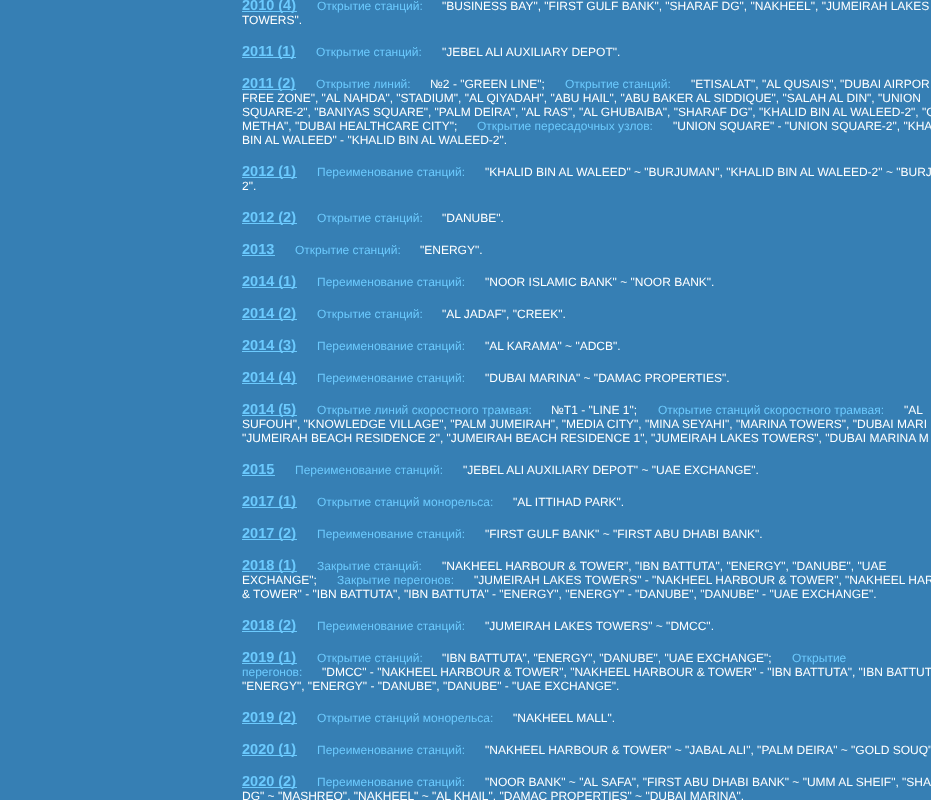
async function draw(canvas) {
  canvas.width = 931
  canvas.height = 800
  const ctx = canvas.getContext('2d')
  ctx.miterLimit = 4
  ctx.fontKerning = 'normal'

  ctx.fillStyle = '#367fb4'
  ctx.fillRect(0, 0, 931, 800)
  ctx.fillStyle = '#6ccafe'
  ctx.fillRect(242, 11, 55, 1)
  ctx.font = 'bold 14.5px Liberation Sans'
  ctx.fillText('2010 (4)', 242, 10)
  ctx.font = '12px Liberation Sans'
  ctx.fillText('Открытие станций:', 317, 10)
  ctx.fillStyle = '#fff'
  ctx.fillText('"BUSINESS BAY", "FIRST GULF BANK", "SHARAF DG", "NAKHEEL", "JUMEIRAH LAKES', 442, 10)
  ctx.fillText('TOWERS".', 242, 24)
  ctx.fillStyle = '#6ccafe'
  ctx.fillRect(242, 57, 54, 1)
  ctx.font = 'bold 14.5px Liberation Sans'
  ctx.fillText('2011 (1)', 242, 56)
  ctx.font = '12px Liberation Sans'
  ctx.fillText('Открытие станций:', 316, 56)
  ctx.fillStyle = '#fff'
  ctx.fillText('"JEBEL ALI AUXILIARY DEPOT".', 442, 56)
  ctx.fillStyle = '#6ccafe'
  ctx.fillRect(242, 89, 54, 1)
  ctx.font = 'bold 14.5px Liberation Sans'
  ctx.fillText('2011 (2)', 242, 88)
  ctx.font = '12px Liberation Sans'
  ctx.fillText('Открытие линий:', 316, 88)
  ctx.fillStyle = '#fff'
  ctx.fillText('№2 - "GREEN LINE";', 430, 88)
  ctx.fillStyle = '#6ccafe'
  ctx.fillText('Открытие станций:', 565, 88)
  ctx.fillStyle = '#fff'
  ctx.fillText('"ETISALAT", "AL QUSAIS", "DUBAI AIRPOR', 691, 88)
  ctx.fillText('FREE ZONE", "AL NAHDA", "STADIUM", "AL QIYADAH", "ABU HAIL", "ABU BAKER AL SIDDIQUE", "SALAH AL DIN", "UNION', 242, 102)
  ctx.fillText('SQUARE-2", "BANIYAS SQUARE", "PALM DEIRA", "AL RAS", "AL GHUBAIBA", "SHARAF DG", "KHALID BIN AL WALEED-2", "O', 242, 116)
  ctx.fillText('METHA", "DUBAI HEALTHCARE CITY";', 242, 130)
  ctx.fillStyle = '#6ccafe'
  ctx.fillText('Открытие пересадочных узлов:', 477, 130)
  ctx.fillStyle = '#fff'
  ctx.fillText('"UNION SQUARE" - "UNION SQUARE-2", "KHA', 673, 130)
  ctx.fillText('BIN AL WALEED" - "KHALID BIN AL WALEED-2".', 242, 144)
  ctx.fillStyle = '#6ccafe'
  ctx.fillRect(242, 177, 55, 1)
  ctx.font = 'bold 14.5px Liberation Sans'
  ctx.fillText('2012 (1)', 242, 176)
  ctx.font = '12px Liberation Sans'
  ctx.fillText('Переименование станций:', 317, 176)
  ctx.fillStyle = '#fff'
  ctx.fillText('"KHALID BIN AL WALEED" ~ "BURJUMAN", "KHALID BIN AL WALEED-2" ~ "BURJ', 485, 176)
  ctx.fillText('2".', 242, 190)
  ctx.fillStyle = '#6ccafe'
  ctx.fillRect(242, 223, 55, 1)
  ctx.font = 'bold 14.5px Liberation Sans'
  ctx.fillText('2012 (2)', 242, 222)
  ctx.font = '12px Liberation Sans'
  ctx.fillText('Открытие станций:', 317, 222)
  ctx.fillStyle = '#fff'
  ctx.fillText('"DANUBE".', 442, 222)
  ctx.font = 'bold 14.5px Liberation Sans'
  ctx.fillStyle = '#6ccafe'
  ctx.fillText('2013', 242, 254)
  ctx.fillRect(242, 255, 33, 1)
  ctx.font = '12px Liberation Sans'
  ctx.fillText('Открытие станций:', 295, 254)
  ctx.fillStyle = '#fff'
  ctx.fillText('"ENERGY".', 420, 254)
  ctx.fillStyle = '#6ccafe'
  ctx.fillRect(242, 287, 55, 1)
  ctx.font = 'bold 14.5px Liberation Sans'
  ctx.fillText('2014 (1)', 242, 286)
  ctx.font = '12px Liberation Sans'
  ctx.fillText('Переименование станций:', 317, 286)
  ctx.fillStyle = '#fff'
  ctx.fillText('"NOOR ISLAMIC BANK" ~ "NOOR BANK".', 485, 286)
  ctx.fillStyle = '#6ccafe'
  ctx.fillRect(242, 319, 55, 1)
  ctx.font = 'bold 14.5px Liberation Sans'
  ctx.fillText('2014 (2)', 242, 318)
  ctx.font = '12px Liberation Sans'
  ctx.fillText('Открытие станций:', 317, 318)
  ctx.fillStyle = '#fff'
  ctx.fillText('"AL JADAF", "CREEK".', 442, 318)
  ctx.fillStyle = '#6ccafe'
  ctx.fillRect(242, 351, 55, 1)
  ctx.font = 'bold 14.5px Liberation Sans'
  ctx.fillText('2014 (3)', 242, 350)
  ctx.font = '12px Liberation Sans'
  ctx.fillText('Переименование станций:', 317, 350)
  ctx.fillStyle = '#fff'
  ctx.fillText('"AL KARAMA" ~ "ADCB".', 485, 350)
  ctx.fillStyle = '#6ccafe'
  ctx.fillRect(242, 383, 55, 1)
  ctx.font = 'bold 14.5px Liberation Sans'
  ctx.fillText('2014 (4)', 242, 382)
  ctx.font = '12px Liberation Sans'
  ctx.fillText('Переименование станций:', 317, 382)
  ctx.fillStyle = '#fff'
  ctx.fillText('"DUBAI MARINA" ~ "DAMAC PROPERTIES".', 485, 382)
  ctx.fillStyle = '#6ccafe'
  ctx.fillRect(242, 415, 55, 1)
  ctx.font = 'bold 14.5px Liberation Sans'
  ctx.fillText('2014 (5)', 242, 414)
  ctx.font = '12px Liberation Sans'
  ctx.fillText('Открытие линий скоростного трамвая:', 317, 414)
  ctx.fillStyle = '#fff'
  ctx.fillText('№T1 - "LINE 1";', 551, 414)
  ctx.fillStyle = '#6ccafe'
  ctx.fillText('Открытие станций скоростного трамвая:', 658, 414)
  ctx.fillStyle = '#fff'
  ctx.fillText('"AL', 904, 414)
  ctx.fillText('SUFOUH", "KNOWLEDGE VILLAGE", "PALM JUMEIRAH", "MEDIA CITY", "MINA SEYAHI", "MARINA TOWERS", "DUBAI MARI', 242, 428)
  ctx.fillText('"JUMEIRAH BEACH RESIDENCE 2", "JUMEIRAH BEACH RESIDENCE 1", "JUMEIRAH LAKES TOWERS", "DUBAI MARINA M', 242, 442)
  ctx.font = 'bold 14.5px Liberation Sans'
  ctx.fillStyle = '#6ccafe'
  ctx.fillText('2015', 242, 474)
  ctx.fillRect(242, 475, 33, 1)
  ctx.font = '12px Liberation Sans'
  ctx.fillText('Переименование станций:', 295, 474)
  ctx.fillStyle = '#fff'
  ctx.fillText('"JEBEL ALI AUXILIARY DEPOT" ~ "UAE EXCHANGE".', 463, 474)
  ctx.fillStyle = '#6ccafe'
  ctx.fillRect(242, 507, 55, 1)
  ctx.font = 'bold 14.5px Liberation Sans'
  ctx.fillText('2017 (1)', 242, 506)
  ctx.font = '12px Liberation Sans'
  ctx.fillText('Открытие станций монорельса:', 317, 506)
  ctx.fillStyle = '#fff'
  ctx.fillText('"AL ITTIHAD PARK".', 513, 506)
  ctx.fillStyle = '#6ccafe'
  ctx.fillRect(242, 539, 55, 1)
  ctx.font = 'bold 14.5px Liberation Sans'
  ctx.fillText('2017 (2)', 242, 538)
  ctx.font = '12px Liberation Sans'
  ctx.fillText('Переименование станций:', 317, 538)
  ctx.fillStyle = '#fff'
  ctx.fillText('"FIRST GULF BANK" ~ "FIRST ABU DHABI BANK".', 485, 538)
  ctx.fillStyle = '#6ccafe'
  ctx.fillRect(242, 571, 55, 1)
  ctx.font = 'bold 14.5px Liberation Sans'
  ctx.fillText('2018 (1)', 242, 570)
  ctx.font = '12px Liberation Sans'
  ctx.fillText('Закрытие станций:', 317, 570)
  ctx.fillStyle = '#fff'
  ctx.fillText('"NAKHEEL HARBOUR & TOWER", "IBN BATTUTA", "ENERGY", "DANUBE", "UAE', 442, 570)
  ctx.fillText('EXCHANGE";', 242, 584)
  ctx.fillStyle = '#6ccafe'
  ctx.fillText('Закрытие перегонов:', 337, 584)
  ctx.fillStyle = '#fff'
  ctx.fillText('"JUMEIRAH LAKES TOWERS" - "NAKHEEL HARBOUR & TOWER", "NAKHEEL HAR', 474, 584)
  ctx.fillText('& TOWER" - "IBN BATTUTA", "IBN BATTUTA" - "ENERGY", "ENERGY" - "DANUBE", "DANUBE" - "UAE EXCHANGE".', 242, 598)
  ctx.fillStyle = '#6ccafe'
  ctx.fillRect(242, 631, 55, 1)
  ctx.font = 'bold 14.5px Liberation Sans'
  ctx.fillText('2018 (2)', 242, 630)
  ctx.font = '12px Liberation Sans'
  ctx.fillText('Переименование станций:', 317, 630)
  ctx.fillStyle = '#fff'
  ctx.fillText('"JUMEIRAH LAKES TOWERS" ~ "DMCC".', 485, 630)
  ctx.fillStyle = '#6ccafe'
  ctx.fillRect(242, 663, 55, 1)
  ctx.font = 'bold 14.5px Liberation Sans'
  ctx.fillText('2019 (1)', 242, 662)
  ctx.font = '12px Liberation Sans'
  ctx.fillText('Открытие станций:', 317, 662)
  ctx.fillStyle = '#fff'
  ctx.fillText('"IBN BATTUTA", "ENERGY", "DANUBE", "UAE EXCHANGE";', 442, 662)
  ctx.fillStyle = '#6ccafe'
  ctx.fillText('Открытие', 792, 662)
  ctx.fillText('перегонов:', 242, 676)
  ctx.fillStyle = '#fff'
  ctx.fillText('"DMCC" - "NAKHEEL HARBOUR & TOWER", "NAKHEEL HARBOUR & TOWER" - "IBN BATTUTA", "IBN BATTUT', 322, 676)
  ctx.fillText('"ENERGY", "ENERGY" - "DANUBE", "DANUBE" - "UAE EXCHANGE".', 242, 690)
  ctx.fillStyle = '#6ccafe'
  ctx.fillRect(242, 723, 55, 1)
  ctx.font = 'bold 14.5px Liberation Sans'
  ctx.fillText('2019 (2)', 242, 722)
  ctx.font = '12px Liberation Sans'
  ctx.fillText('Открытие станций монорельса:', 317, 722)
  ctx.fillStyle = '#fff'
  ctx.fillText('"NAKHEEL MALL".', 513, 722)
  ctx.fillStyle = '#6ccafe'
  ctx.fillRect(242, 755, 55, 1)
  ctx.font = 'bold 14.5px Liberation Sans'
  ctx.fillText('2020 (1)', 242, 754)
  ctx.font = '12px Liberation Sans'
  ctx.fillText('Переименование станций:', 317, 754)
  ctx.fillStyle = '#fff'
  ctx.fillText('"NAKHEEL HARBOUR & TOWER" ~ "JABAL ALI", "PALM DEIRA" ~ "GOLD SOUQ"', 485, 754)
  ctx.fillStyle = '#6ccafe'
  ctx.fillRect(242, 787, 55, 1)
  ctx.font = 'bold 14.5px Liberation Sans'
  ctx.fillText('2020 (2)', 242, 786)
  ctx.font = '12px Liberation Sans'
  ctx.fillText('Переименование станций:', 317, 786)
  ctx.fillStyle = '#fff'
  ctx.fillText('"NOOR BANK" ~ "AL SAFA", "FIRST ABU DHABI BANK" ~ "UMM AL SHEIF", "SHA', 485, 786)
  ctx.fillText('DG" ~ "MASHREQ", "NAKHEEL" ~ "AL KHAIL", "DAMAC PROPERTIES" ~ "DUBAI MARINA".', 242, 800)
}

draw(document.querySelector('canvas'))
